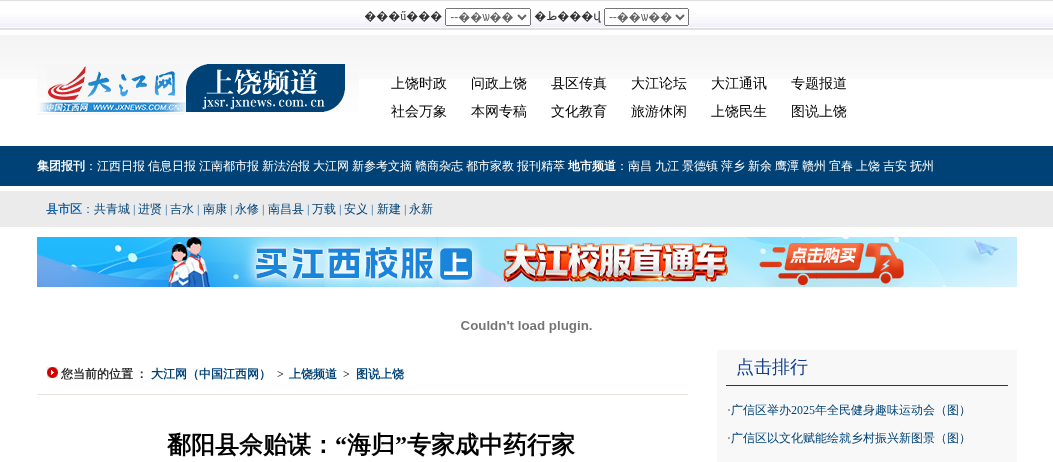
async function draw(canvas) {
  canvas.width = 1053
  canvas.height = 462
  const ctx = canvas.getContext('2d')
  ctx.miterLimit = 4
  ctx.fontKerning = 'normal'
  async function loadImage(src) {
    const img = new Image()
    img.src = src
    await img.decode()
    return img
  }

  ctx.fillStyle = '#fff'
  ctx.fillRect(0, 0, 1053, 462)
  ctx.drawImage(await loadImage('image0.png'), 0, 0, 1053, 30)
  ctx.drawImage(await loadImage('image1.png'), 0, 35, 1053, 44)
  ctx.drawImage(await loadImage('image2.png'), 37, 64, 322, 51)
  ctx.font = '500 14px WenQuanYi Zen Hei'
  ctx.fillStyle = '#010101'
  ctx.fillText('上饶时政', 391, 88)
  ctx.fillText('社会万象', 391, 116)
  ctx.fillText('问政上饶', 471, 88)
  ctx.fillText('本网专稿', 471, 116)
  ctx.fillText('县区传真', 551, 88)
  ctx.fillText('文化教育', 551, 116)
  ctx.fillText('大江论坛', 631, 88)
  ctx.fillText('旅游休闲', 631, 116)
  ctx.fillText('大江通讯', 711, 88)
  ctx.fillText('上饶民生', 711, 116)
  ctx.fillText('专题报道', 791, 88)
  ctx.fillText('图说上饶', 791, 116)
  ctx.fillStyle = '#004276'
  ctx.fillRect(0, 146, 1053, 40)
  ctx.font = 'bold 12px WenQuanYi Zen Hei'
  ctx.fillStyle = '#fff'
  ctx.fillText('集团报刊', 37, 170)
  ctx.font = '500 12px WenQuanYi Zen Hei'
  ctx.fillText('：江西日报', 85, 170)
  ctx.fillText('信息日报', 148, 170)
  ctx.fillText('江南都市报', 199, 170)
  ctx.fillText('新法治报', 262, 170)
  ctx.fillText('大江网', 313, 170)
  ctx.fillText('新参考文摘', 352, 170)
  ctx.fillText('赣商杂志', 415, 170)
  ctx.fillText('都市家教', 466, 170)
  ctx.fillText('报刊精萃', 517, 170)
  ctx.font = 'bold 12px WenQuanYi Zen Hei'
  ctx.fillText('地市频道', 568, 170)
  ctx.font = '500 12px WenQuanYi Zen Hei'
  ctx.fillText('：南昌', 616, 170)
  ctx.fillText('九江', 655, 170)
  ctx.fillText('景德镇', 682, 170)
  ctx.fillText('萍乡', 721, 170)
  ctx.fillText('新余', 748, 170)
  ctx.fillText('鹰潭', 775, 170)
  ctx.fillText('赣州', 802, 170)
  ctx.fillText('宜春', 829, 170)
  ctx.fillText('上饶', 856, 170)
  ctx.fillText('吉安', 883, 170)
  ctx.fillText('抚州', 910, 170)
  ctx.fillStyle = '#ebebeb'
  ctx.fillRect(0, 191, 1053, 36)
  ctx.font = 'bold 12px WenQuanYi Zen Hei'
  ctx.fillStyle = '#1362ab'
  ctx.fillText('县市区', 46, 213)
  ctx.font = '500 12px WenQuanYi Zen Hei'
  ctx.fillText('：', 82, 213)
  ctx.fillStyle = '#004276'
  ctx.fillText('共青城', 94, 213)
  ctx.font = '12px Liberation Serif'
  ctx.fillStyle = '#1362ab'
  ctx.fillText('|', 133, 213)
  ctx.font = '500 12px WenQuanYi Zen Hei'
  ctx.fillStyle = '#004276'
  ctx.fillText('进贤', 138, 213)
  ctx.font = '12px Liberation Serif'
  ctx.fillStyle = '#1362ab'
  ctx.fillText('|', 165, 213)
  ctx.font = '500 12px WenQuanYi Zen Hei'
  ctx.fillStyle = '#004276'
  ctx.fillText('吉水', 170, 213)
  ctx.font = '12px Liberation Serif'
  ctx.fillStyle = '#1362ab'
  ctx.fillText('|', 197, 213)
  ctx.font = '500 12px WenQuanYi Zen Hei'
  ctx.fillStyle = '#004276'
  ctx.fillText('南康', 203, 213)
  ctx.font = '12px Liberation Serif'
  ctx.fillStyle = '#1362ab'
  ctx.fillText('|', 230, 213)
  ctx.font = '500 12px WenQuanYi Zen Hei'
  ctx.fillStyle = '#004276'
  ctx.fillText('永修', 235, 213)
  ctx.font = '12px Liberation Serif'
  ctx.fillStyle = '#1362ab'
  ctx.fillText('|', 262, 213)
  ctx.font = '500 12px WenQuanYi Zen Hei'
  ctx.fillStyle = '#004276'
  ctx.fillText('南昌县', 268, 213)
  ctx.font = '12px Liberation Serif'
  ctx.fillStyle = '#1362ab'
  ctx.fillText('|', 307, 213)
  ctx.font = '500 12px WenQuanYi Zen Hei'
  ctx.fillStyle = '#004276'
  ctx.fillText('万载', 312, 213)
  ctx.font = '12px Liberation Serif'
  ctx.fillStyle = '#1362ab'
  ctx.fillText('|', 339, 213)
  ctx.font = '500 12px WenQuanYi Zen Hei'
  ctx.fillStyle = '#004276'
  ctx.fillText('安义', 344, 213)
  ctx.font = '12px Liberation Serif'
  ctx.fillStyle = '#1362ab'
  ctx.fillText('|', 371, 213)
  ctx.font = '500 12px WenQuanYi Zen Hei'
  ctx.fillStyle = '#004276'
  ctx.fillText('新建', 377, 213)
  ctx.font = '12px Liberation Serif'
  ctx.fillStyle = '#1362ab'
  ctx.fillText('|', 404, 213)
  ctx.font = '500 12px WenQuanYi Zen Hei'
  ctx.fillStyle = '#004276'
  ctx.fillText('永新', 409, 213)
  ctx.drawImage(await loadImage('image3.png'), 37, 237, 980, 50)
  ctx.drawImage(await loadImage('image4.png'), 461, 321, 131, 12)
  ctx.fillStyle = '#e6e1db'
  ctx.fillRect(37, 394, 651, 1)
  ctx.drawImage(await loadImage('image5.png'), 47, 367, 11, 11)
  ctx.wordSpacing = '-1px'
  ctx.font = 'bold 12px WenQuanYi Zen Hei'
  ctx.fillStyle = '#2b2b2b'
  ctx.fillText('您当前的位置 ：', 61, 378)
  ctx.wordSpacing = '0px'
  ctx.fillStyle = '#004276'
  ctx.fillText('大江网（中国江西网）', 151, 378)
  ctx.font = 'bold 12px Liberation Serif'
  ctx.fillStyle = '#2b2b2b'
  ctx.fillText('>', 277, 378)
  ctx.font = 'bold 12px WenQuanYi Zen Hei'
  ctx.fillStyle = '#004276'
  ctx.fillText('上饶频道', 289, 378)
  ctx.font = 'bold 12px Liberation Serif'
  ctx.fillStyle = '#2b2b2b'
  ctx.fillText('>', 343, 378)
  ctx.font = 'bold 12px WenQuanYi Zen Hei'
  ctx.fillStyle = '#004276'
  ctx.fillText('图说上饶', 356, 378)
  ctx.font = 'bold 24px WenQuanYi Zen Hei'
  ctx.fillStyle = '#010101'
  ctx.fillText('鄱阳县佘贻谋：', 167, 453)
  ctx.font = 'bold 24px Liberation Serif'
  ctx.fillText('“', 335, 453)
  ctx.font = 'bold 24px WenQuanYi Zen Hei'
  ctx.fillText('海归', 347, 453)
  ctx.font = 'bold 24px Liberation Serif'
  ctx.fillText('”', 395, 453)
  ctx.font = 'bold 24px WenQuanYi Zen Hei'
  ctx.fillText('专家成中药行家', 407, 453)
  ctx.fillStyle = '#f8f8f8'
  ctx.fillRect(717, 350, 300, 112)
  ctx.fillStyle = '#06416d'
  ctx.fillRect(726, 385, 282, 1)
  ctx.font = '500 18px WenQuanYi Zen Hei'
  ctx.fillStyle = '#113f8c'
  ctx.fillText('点击排行', 736, 373)
  ctx.font = '12px Liberation Serif'
  ctx.fillStyle = '#2b2b2b'
  ctx.fillText('·', 727, 414)
  ctx.font = '500 12px WenQuanYi Zen Hei'
  ctx.fillStyle = '#004276'
  ctx.fillText('广信区举办', 731, 414)
  ctx.font = '12px Liberation Serif'
  ctx.fillText('2025', 791, 414)
  ctx.font = '500 12px WenQuanYi Zen Hei'
  ctx.fillText('年全民健身趣味运动会（图）', 815, 414)
  ctx.font = '12px Liberation Serif'
  ctx.fillStyle = '#2b2b2b'
  ctx.fillText('·', 727, 442)
  ctx.font = '500 12px WenQuanYi Zen Hei'
  ctx.fillStyle = '#004276'
  ctx.fillText('广信区以文化赋能绘就乡村振兴新图景（图）', 731, 442)
}

draw(document.querySelector('canvas'))
